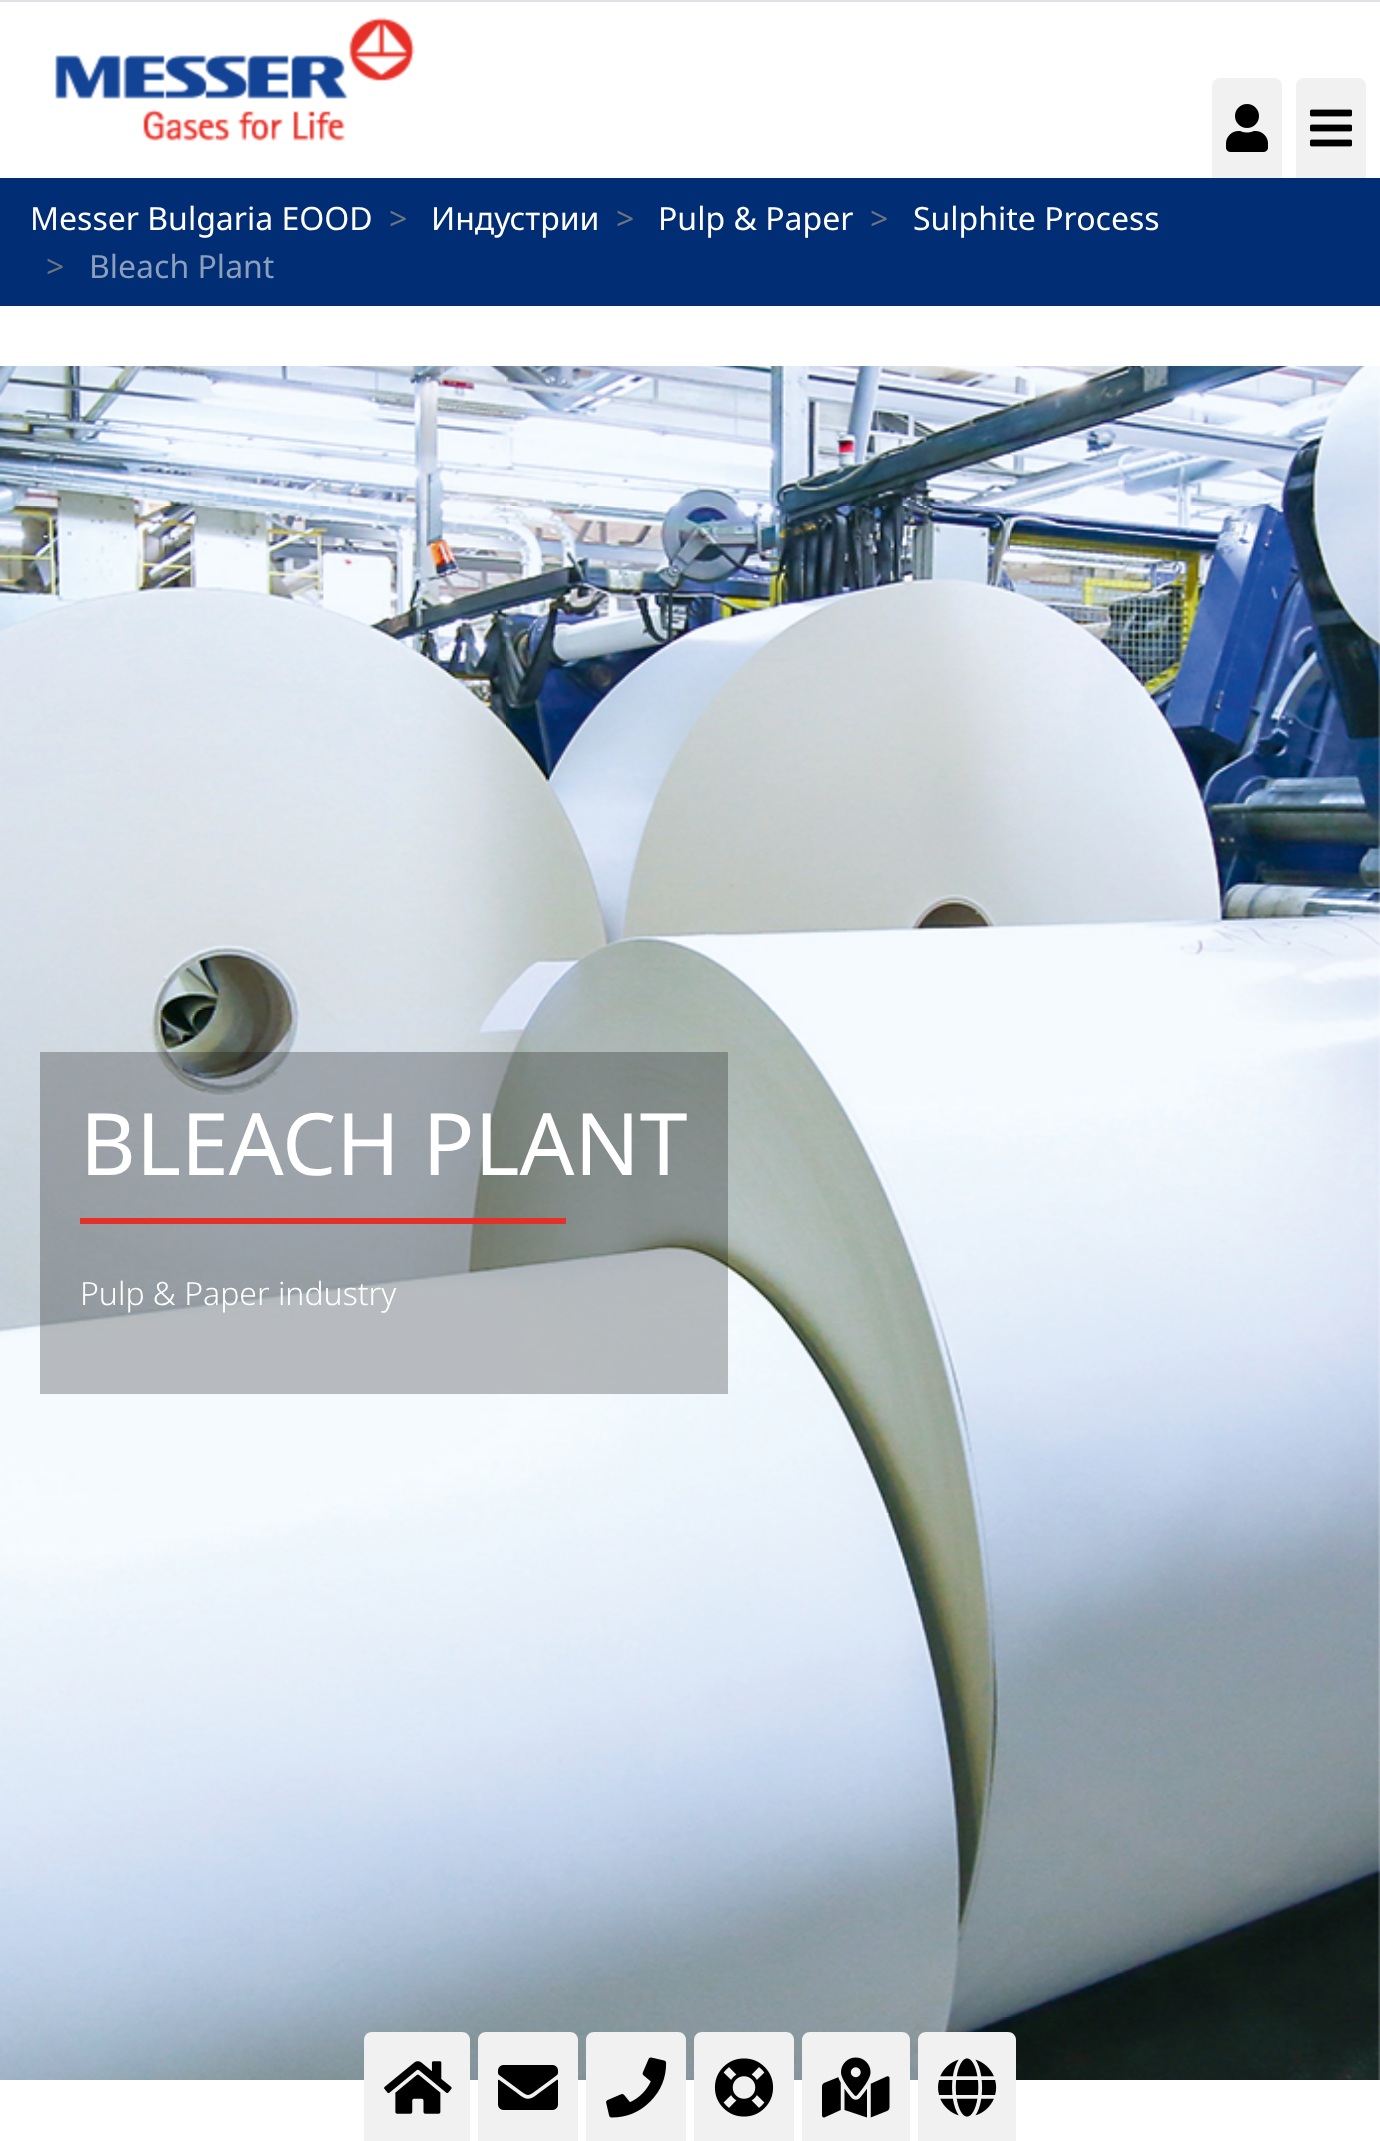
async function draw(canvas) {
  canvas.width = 1380
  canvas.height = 2141
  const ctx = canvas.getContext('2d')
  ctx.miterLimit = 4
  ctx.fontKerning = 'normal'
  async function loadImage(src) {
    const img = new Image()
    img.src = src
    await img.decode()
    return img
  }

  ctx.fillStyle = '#fff'
  ctx.fillRect(0, 0, 1380, 2141)
  ctx.fillStyle = '#dee2e6'
  ctx.fillRect(0, 0, 1380, 2)
  ctx.drawImage(await loadImage('image0.png'), 55, 17, 360, 124)
  ctx.fillStyle = '#f1f1f1'
  ctx.beginPath()
  ctx.roundRect(1212, 78, 70, 100, [8, 8, 0, 0])
  ctx.fill()
  ctx.drawImage(await loadImage('image1.png'), 1226, 104, 42, 48)
  ctx.beginPath()
  ctx.roundRect(1296, 78, 70, 100, [8, 8, 0, 0])
  ctx.fill()
  ctx.drawImage(await loadImage('image2.png'), 1310, 109, 42, 38)
  ctx.fillStyle = '#002d73'
  ctx.fillRect(0, 178, 1380, 128)
  ctx.font = 'italic 32px Noto Sans'
  ctx.fillStyle = '#fff'
  ctx.fillText('Messer Bulgaria EOOD', 30, 230)
  ctx.fillStyle = '#6c757d'
  ctx.fillText('>', 389, 230)
  ctx.fillStyle = '#fff'
  ctx.fillText('Индустрии', 431, 230)
  ctx.fillStyle = '#6c757d'
  ctx.fillText('>', 616, 230)
  ctx.fillStyle = '#fff'
  ctx.fillText('Pulp & Paper', 658, 230)
  ctx.fillStyle = '#6c757d'
  ctx.fillText('>', 870, 230)
  ctx.fillStyle = '#fff'
  ctx.fillText('Sulphite Process', 913, 230)
  ctx.fillStyle = '#6c757d'
  ctx.fillText('>', 46, 278)
  ctx.fillStyle = '#8b9ebc'
  ctx.fillText('Bleach Plant', 89, 278)
  ctx.drawImage(await loadImage('image3.png'), 0, 366, 1380, 1714)
  ctx.fillStyle = '#00000040'
  ctx.fillRect(40, 1052, 688, 342)
  ctx.font = 'italic 86px Noto Sans'
  ctx.fillStyle = '#fff'
  ctx.fillText('BLEACH PLANT', 80, 1175)
  ctx.fillStyle = '#e3312a'
  ctx.fillRect(80, 1218, 486, 6)
  ctx.font = 'italic 300 32px Noto Sans'
  ctx.fillStyle = '#fff'
  ctx.fillText('Pulp & Paper industry', 80, 1305)
  ctx.fillStyle = '#f1f1f1'
  ctx.beginPath()
  ctx.moveTo(372, 2032)
  ctx.lineTo(462, 2032)
  ctx.bezierCurveTo(466.5, 2032, 470, 2035.5, 470, 2040)
  ctx.lineTo(470, 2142)
  ctx.lineTo(364, 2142)
  ctx.lineTo(364, 2040)
  ctx.bezierCurveTo(364, 2035.5, 367.5, 2032, 372, 2032)
  ctx.closePath()
  ctx.fill()
  ctx.drawImage(await loadImage('image4.png'), 384, 2061, 68, 53)
  ctx.beginPath()
  ctx.moveTo(486, 2032)
  ctx.lineTo(570, 2032)
  ctx.bezierCurveTo(574.5, 2032, 578, 2035.5, 578, 2040)
  ctx.lineTo(578, 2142)
  ctx.lineTo(478, 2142)
  ctx.lineTo(478, 2040)
  ctx.bezierCurveTo(478, 2035.5, 481.5, 2032, 486, 2032)
  ctx.closePath()
  ctx.fill()
  ctx.drawImage(await loadImage('image5.png'), 498, 2065, 60, 45)
  ctx.beginPath()
  ctx.moveTo(594, 2032)
  ctx.lineTo(678, 2032)
  ctx.bezierCurveTo(682.5, 2032, 686, 2035.5, 686, 2040)
  ctx.lineTo(686, 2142)
  ctx.lineTo(586, 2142)
  ctx.lineTo(586, 2040)
  ctx.bezierCurveTo(586, 2035.5, 589.5, 2032, 594, 2032)
  ctx.closePath()
  ctx.fill()
  ctx.drawImage(await loadImage('image6.png'), 606, 2057, 61, 61)
  ctx.beginPath()
  ctx.moveTo(702, 2032)
  ctx.lineTo(786, 2032)
  ctx.bezierCurveTo(790.5, 2032, 794, 2035.5, 794, 2040)
  ctx.lineTo(794, 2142)
  ctx.lineTo(694, 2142)
  ctx.lineTo(694, 2040)
  ctx.bezierCurveTo(694, 2035.5, 697.5, 2032, 702, 2032)
  ctx.closePath()
  ctx.fill()
  ctx.drawImage(await loadImage('image7.png'), 714, 2058, 60, 59)
  ctx.beginPath()
  ctx.moveTo(810, 2032)
  ctx.lineTo(902, 2032)
  ctx.bezierCurveTo(906.5, 2032, 910, 2035.5, 910, 2040)
  ctx.lineTo(910, 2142)
  ctx.lineTo(802, 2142)
  ctx.lineTo(802, 2040)
  ctx.bezierCurveTo(802, 2035.5, 805.5, 2032, 810, 2032)
  ctx.closePath()
  ctx.fill()
  ctx.drawImage(await loadImage('image8.png'), 822, 2057, 68, 61)
  ctx.beginPath()
  ctx.moveTo(926, 2032)
  ctx.lineTo(1008, 2032)
  ctx.bezierCurveTo(1012.5, 2032, 1016, 2035.5, 1016, 2040)
  ctx.lineTo(1016, 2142)
  ctx.lineTo(918, 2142)
  ctx.lineTo(918, 2040)
  ctx.bezierCurveTo(918, 2035.5, 921.5, 2032, 926, 2032)
  ctx.closePath()
  ctx.fill()
  ctx.drawImage(await loadImage('image9.png'), 938, 2058, 59, 59)
}

draw(document.querySelector('canvas'))
